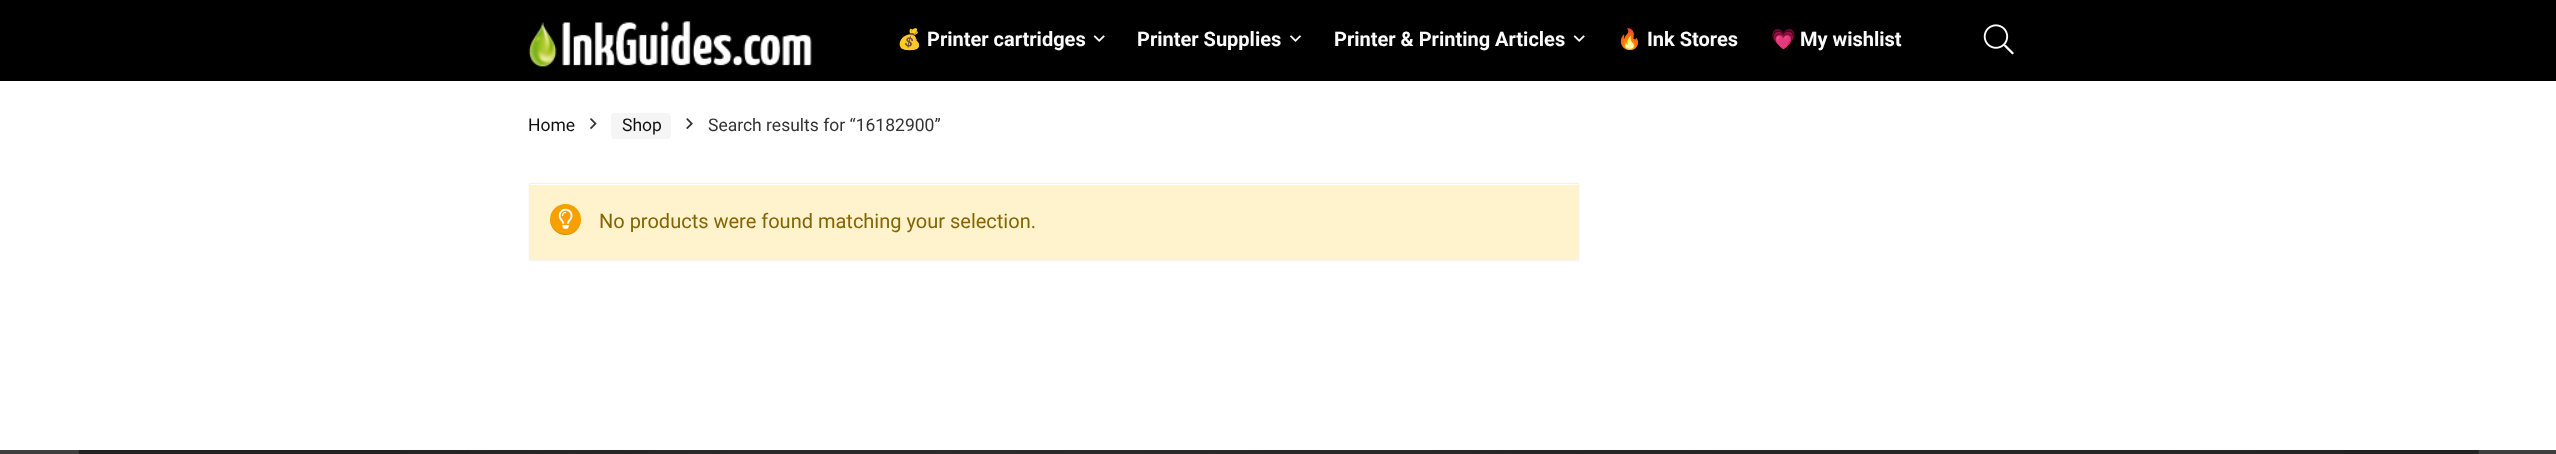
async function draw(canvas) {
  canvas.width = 2556
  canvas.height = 454
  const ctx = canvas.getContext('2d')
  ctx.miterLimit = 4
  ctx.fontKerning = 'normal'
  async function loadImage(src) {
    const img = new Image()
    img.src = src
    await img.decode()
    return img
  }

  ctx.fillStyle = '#fff'
  ctx.fillRect(0, 0, 2556, 454)
  ctx.fillStyle = '#000'
  ctx.fillRect(0, 0, 2556, 81)
  ctx.drawImage(await loadImage('image0.png'), 528, 21, 284, 46)
  ctx.font = 'bold 20px Noto Color Emoji'
  ctx.fillStyle = '#fbfbfb'
  ctx.fillText('💰', 897, 46)
  ctx.font = 'bold 20px Roboto'
  ctx.fillText('Printer cartridges', 927, 46)
  ctx.drawImage(await loadImage('image1.png'), 1093, 35, 12, 7)
  ctx.fillText('Printer Supplies', 1137, 46)
  ctx.drawImage(await loadImage('image2.png'), 1290, 35, 11, 7)
  ctx.fillText('Printer & Printing Articles', 1334, 46)
  ctx.drawImage(await loadImage('image1.png'), 1573, 35, 12, 7)
  ctx.font = 'bold 20px Noto Color Emoji'
  ctx.fillText('🔥', 1617, 46)
  ctx.font = 'bold 20px Roboto'
  ctx.fillText('Ink Stores', 1647, 46)
  ctx.font = 'bold 20px Noto Color Emoji'
  ctx.fillText('💗', 1771, 46)
  ctx.font = 'bold 20px Roboto'
  ctx.fillText('My wishlist', 1800, 46)
  ctx.drawImage(await loadImage('image3.png'), 1983, 24, 31, 31)
  ctx.font = '17.5px Roboto'
  ctx.fillStyle = '#111'
  ctx.fillText('Home', 528, 131)
  ctx.drawImage(await loadImage('image4.png'), 590, 118, 7, 11)
  ctx.fillStyle = '#f5f5f5'
  ctx.beginPath()
  ctx.roundRect(611, 113, 60, 26, 4)
  ctx.fill()
  ctx.fillStyle = '#111'
  ctx.fillText('Shop', 622, 131)
  ctx.drawImage(await loadImage('image5.png'), 686, 118, 7, 11)
  ctx.fillStyle = '#333'
  ctx.fillText('Search results for “16182900”', 708, 131)
  ctx.fillStyle = '#0000000d'
  ctx.filter = 'blur(1px)'
  ctx.beginPath()
  ctx.rect(529, 184, 1050, 77)
  ctx.fill()
  ctx.filter = 'none'
  ctx.fillStyle = '#fff3cd'
  ctx.fillRect(530, 185, 1048, 74)
  ctx.fillStyle = '#fff'
  ctx.fillRect(530, 184, 1048, 1)
  ctx.strokeStyle = '#f9f1d8'
  ctx.strokeRect(529.5, 183.5, 1049, 76)
  ctx.fillStyle = '#f7a000'
  ctx.beginPath()
  ctx.arc(565.5, 219.5, 15.5, 0, 2 * Math.PI)
  ctx.fill()
  ctx.fillStyle = '#0000001a'
  ctx.beginPath()
  ctx.moveTo(581, 219)
  ctx.bezierCurveTo(580, 240.5, 548.5, 238, 550.5, 216.5)
  ctx.bezierCurveTo(547, 232.5, 569, 242.5, 578.5, 228)
  ctx.bezierCurveTo(580, 225.5, 581, 222, 581, 219)
  ctx.closePath()
  ctx.fill()
  ctx.drawImage(await loadImage('image6.png'), 558, 208, 15, 21)
  ctx.font = '20px Roboto'
  ctx.fillStyle = '#856404'
  ctx.fillText('No products were found matching your selection.', 599, 228)
  ctx.fillStyle = '#3f3f3f'
  ctx.fillRect(0, 450, 2556, 4)
  ctx.drawImage(await loadImage('image7.png'), 78, 450, 2401, 4)
}

draw(document.querySelector('canvas'))
